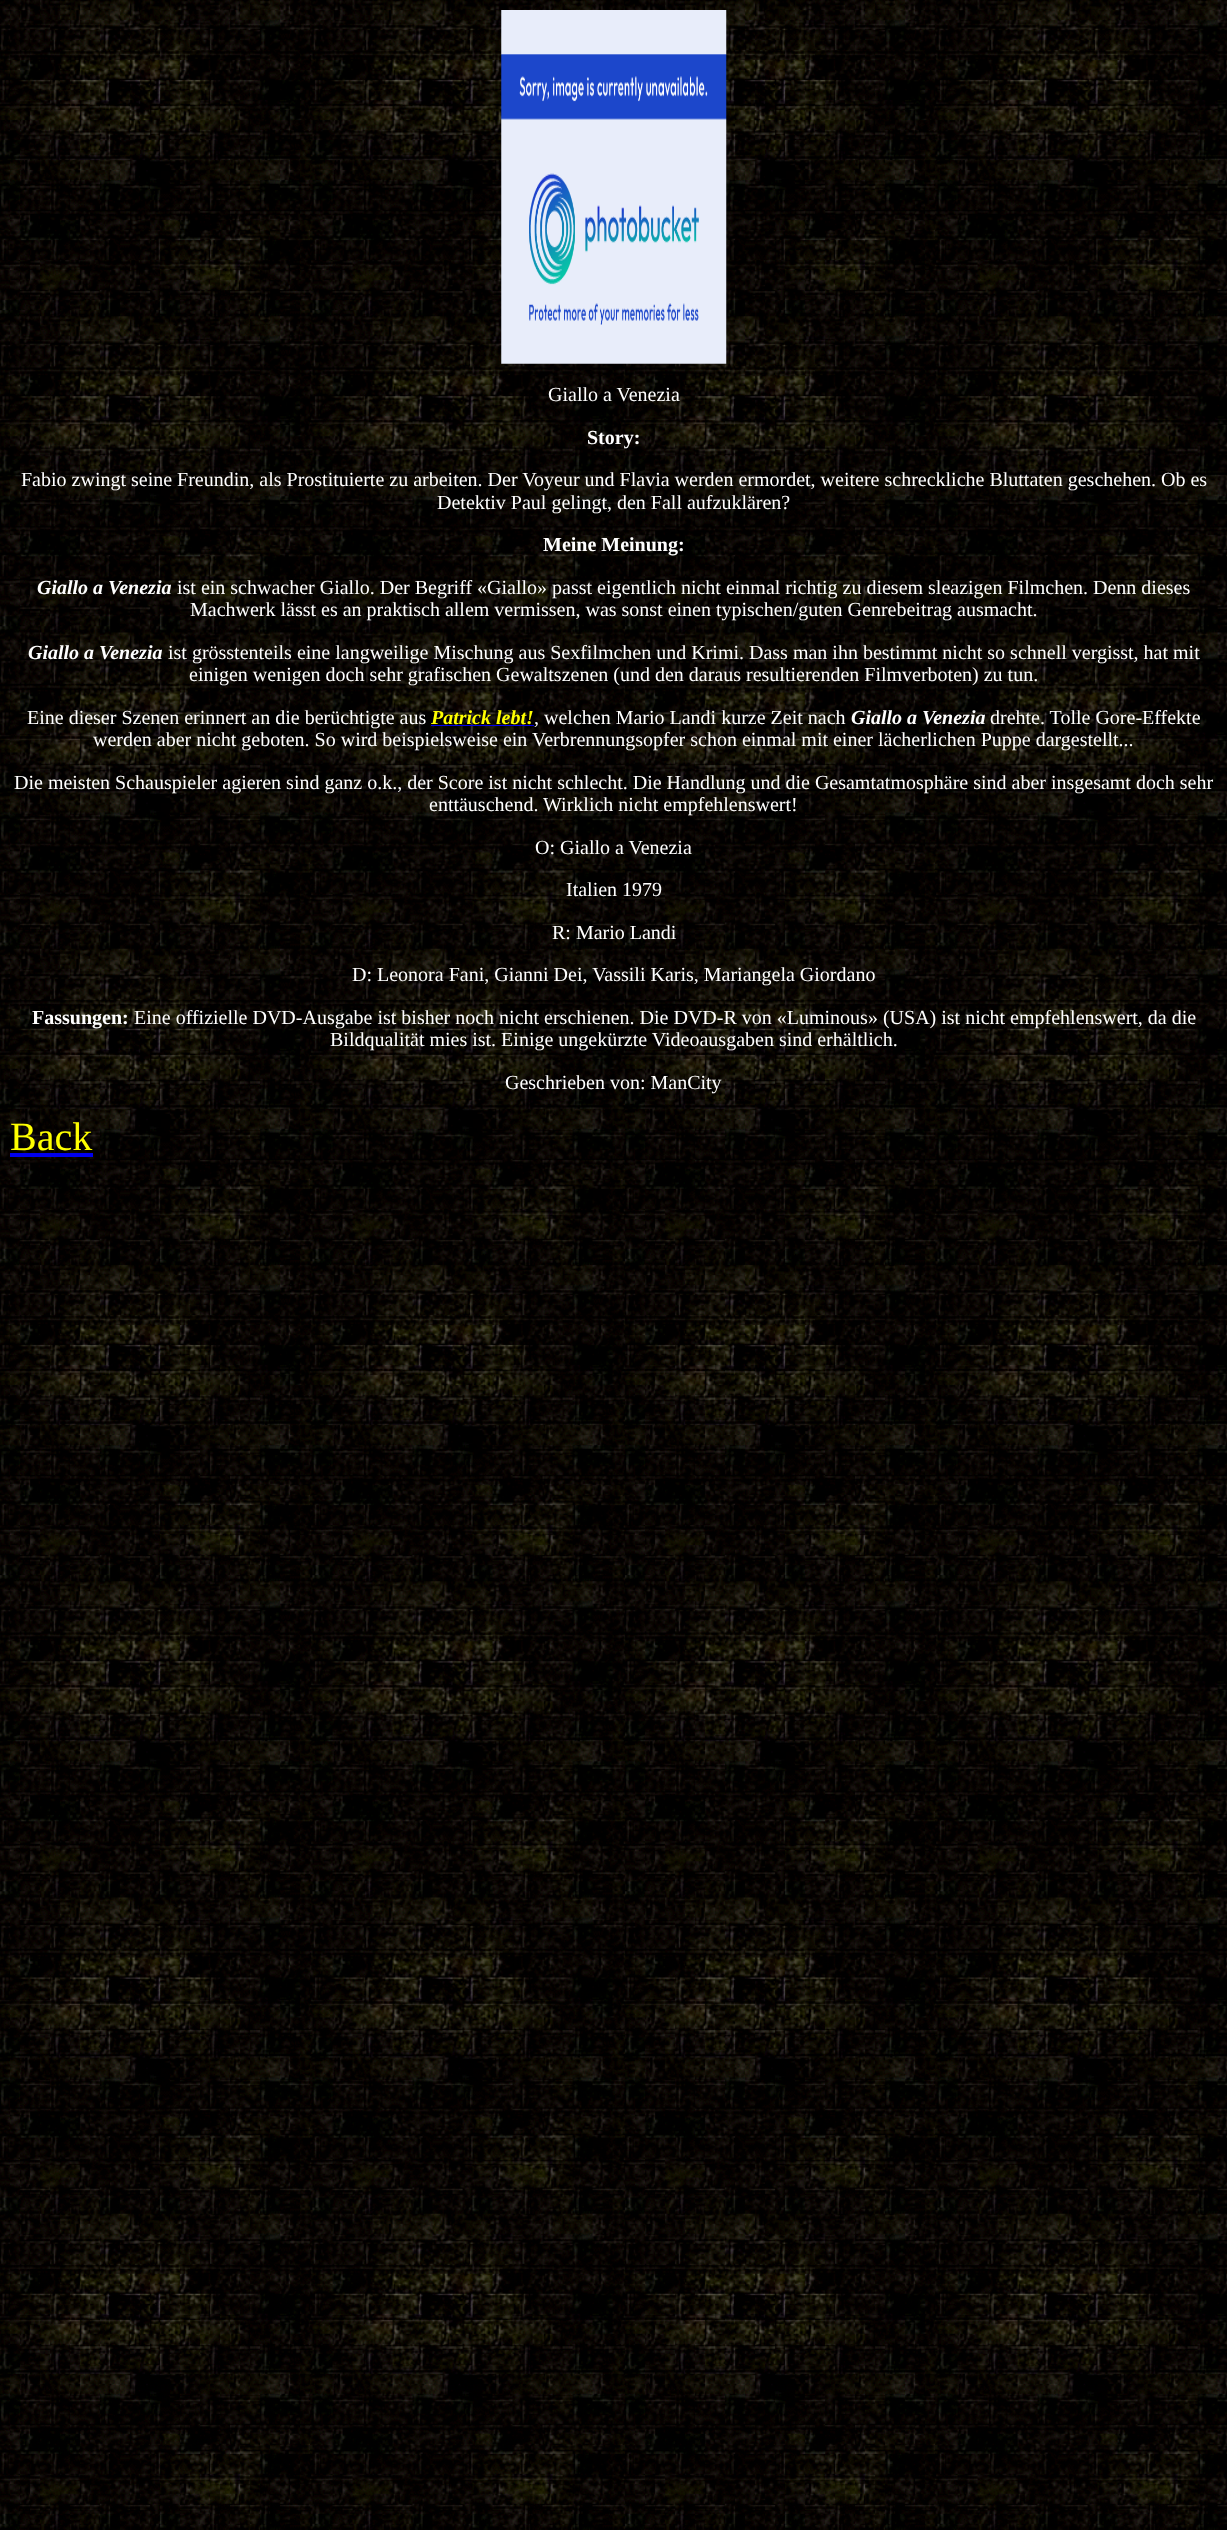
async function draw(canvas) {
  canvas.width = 1227
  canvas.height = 2530
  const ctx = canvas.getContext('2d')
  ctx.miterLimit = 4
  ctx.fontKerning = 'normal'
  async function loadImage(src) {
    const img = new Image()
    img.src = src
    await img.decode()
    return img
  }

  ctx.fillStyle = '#fff'
  ctx.fillRect(0, 0, 1227, 2530)
  ctx.drawImage(await loadImage('image0.png'), 0, 0, 1227, 2530)
  ctx.drawImage(await loadImage('image1.png'), 501, 10, 226, 354)
  ctx.font = '20px Liberation Serif'
  ctx.fillText('Giallo a Venezia', 548, 401)
  ctx.font = 'bold 20px Liberation Serif'
  ctx.fillText('Story:', 587, 444)
  ctx.font = '20px Liberation Serif'
  ctx.fillText('Fabio zwingt seine Freundin, als Prostituierte zu arbeiten. Der Voyeur und Flavia werden ermordet, weitere schreckliche Bluttaten geschehen. Ob es', 21, 486)
  ctx.fillText('Detektiv Paul gelingt, den Fall aufzuklären?', 437, 509)
  ctx.font = 'bold 20px Liberation Serif'
  ctx.fillText('Meine Meinung:', 543, 551)
  ctx.font = 'italic bold 20px Liberation Serif'
  ctx.fillText('Giallo a Venezia', 37, 594)
  ctx.font = '20px Liberation Serif'
  ctx.fillText('ist ein schwacher Giallo. Der Begriff «Giallo» passt eigentlich nicht einmal richtig zu diesem sleazigen Filmchen. Denn dieses', 177, 594)
  ctx.fillText('Machwerk lässt es an praktisch allem vermissen, was sonst einen typischen/guten Genrebeitrag ausmacht.', 190, 616)
  ctx.font = 'italic bold 20px Liberation Serif'
  ctx.fillText('Giallo a Venezia', 28, 659)
  ctx.font = '20px Liberation Serif'
  ctx.fillText('ist grösstenteils eine langweilige Mischung aus Sexfilmchen und Krimi. Dass man ihn bestimmt nicht so schnell vergisst, hat mit', 168, 659)
  ctx.fillText('einigen wenigen doch sehr grafischen Gewaltszenen (und den daraus resultierenden Filmverboten) zu tun.', 189, 681)
  ctx.fillText('Eine dieser Szenen erinnert an die berüchtigte aus', 27, 724)
  ctx.font = 'italic bold 20px Liberation Serif'
  ctx.fillStyle = '#ff0'
  ctx.fillText('Patrick lebt!', 431, 724)
  ctx.fillStyle = '#00e'
  ctx.fillRect(431, 725, 103, 1)
  ctx.font = '20px Liberation Serif'
  ctx.fillStyle = '#fff'
  ctx.fillText(', welchen Mario Landi kurze Zeit nach', 534, 724)
  ctx.font = 'italic bold 20px Liberation Serif'
  ctx.fillText('Giallo a Venezia', 851, 724)
  ctx.font = '20px Liberation Serif'
  ctx.fillText('drehte. Tolle Gore-Effekte', 990, 724)
  ctx.fillText('werden aber nicht geboten. So wird beispielsweise ein Verbrennungsopfer schon einmal mit einer lächerlichen Puppe dargestellt...', 93, 746)
  ctx.fillText('Die meisten Schauspieler agieren sind ganz o.k., der Score ist nicht schlecht. Die Handlung und die Gesamtatmosphäre sind aber insgesamt doch sehr', 14, 789)
  ctx.fillText('enttäuschend. Wirklich nicht empfehlenswert!', 429, 811)
  ctx.fillText('O: Giallo a Venezia', 535, 854)
  ctx.fillText('Italien 1979', 566, 896)
  ctx.fillText('R: Mario Landi', 552, 939)
  ctx.fillText('D: Leonora Fani, Gianni Dei, Vassili Karis, Mariangela Giordano', 352, 981)
  ctx.font = 'bold 20px Liberation Serif'
  ctx.fillText('Fassungen:', 32, 1024)
  ctx.font = '20px Liberation Serif'
  ctx.fillText('Eine offizielle DVD-Ausgabe ist bisher noch nicht erschienen. Die DVD-R von «Luminous» (USA) ist nicht empfehlenswert, da die', 134, 1024)
  ctx.fillText('Bildqualität mies ist. Einige ungekürzte Videoausgaben sind erhältlich.', 330, 1046)
  ctx.fillText('Geschrieben von: ManCity', 505, 1089)
  ctx.font = '40px Liberation Serif'
  ctx.fillStyle = '#ff0'
  ctx.fillText('Back', 10, 1150)
  ctx.fillStyle = '#00e'
  ctx.fillRect(10, 1153, 83, 4)
}

draw(document.querySelector('canvas'))
